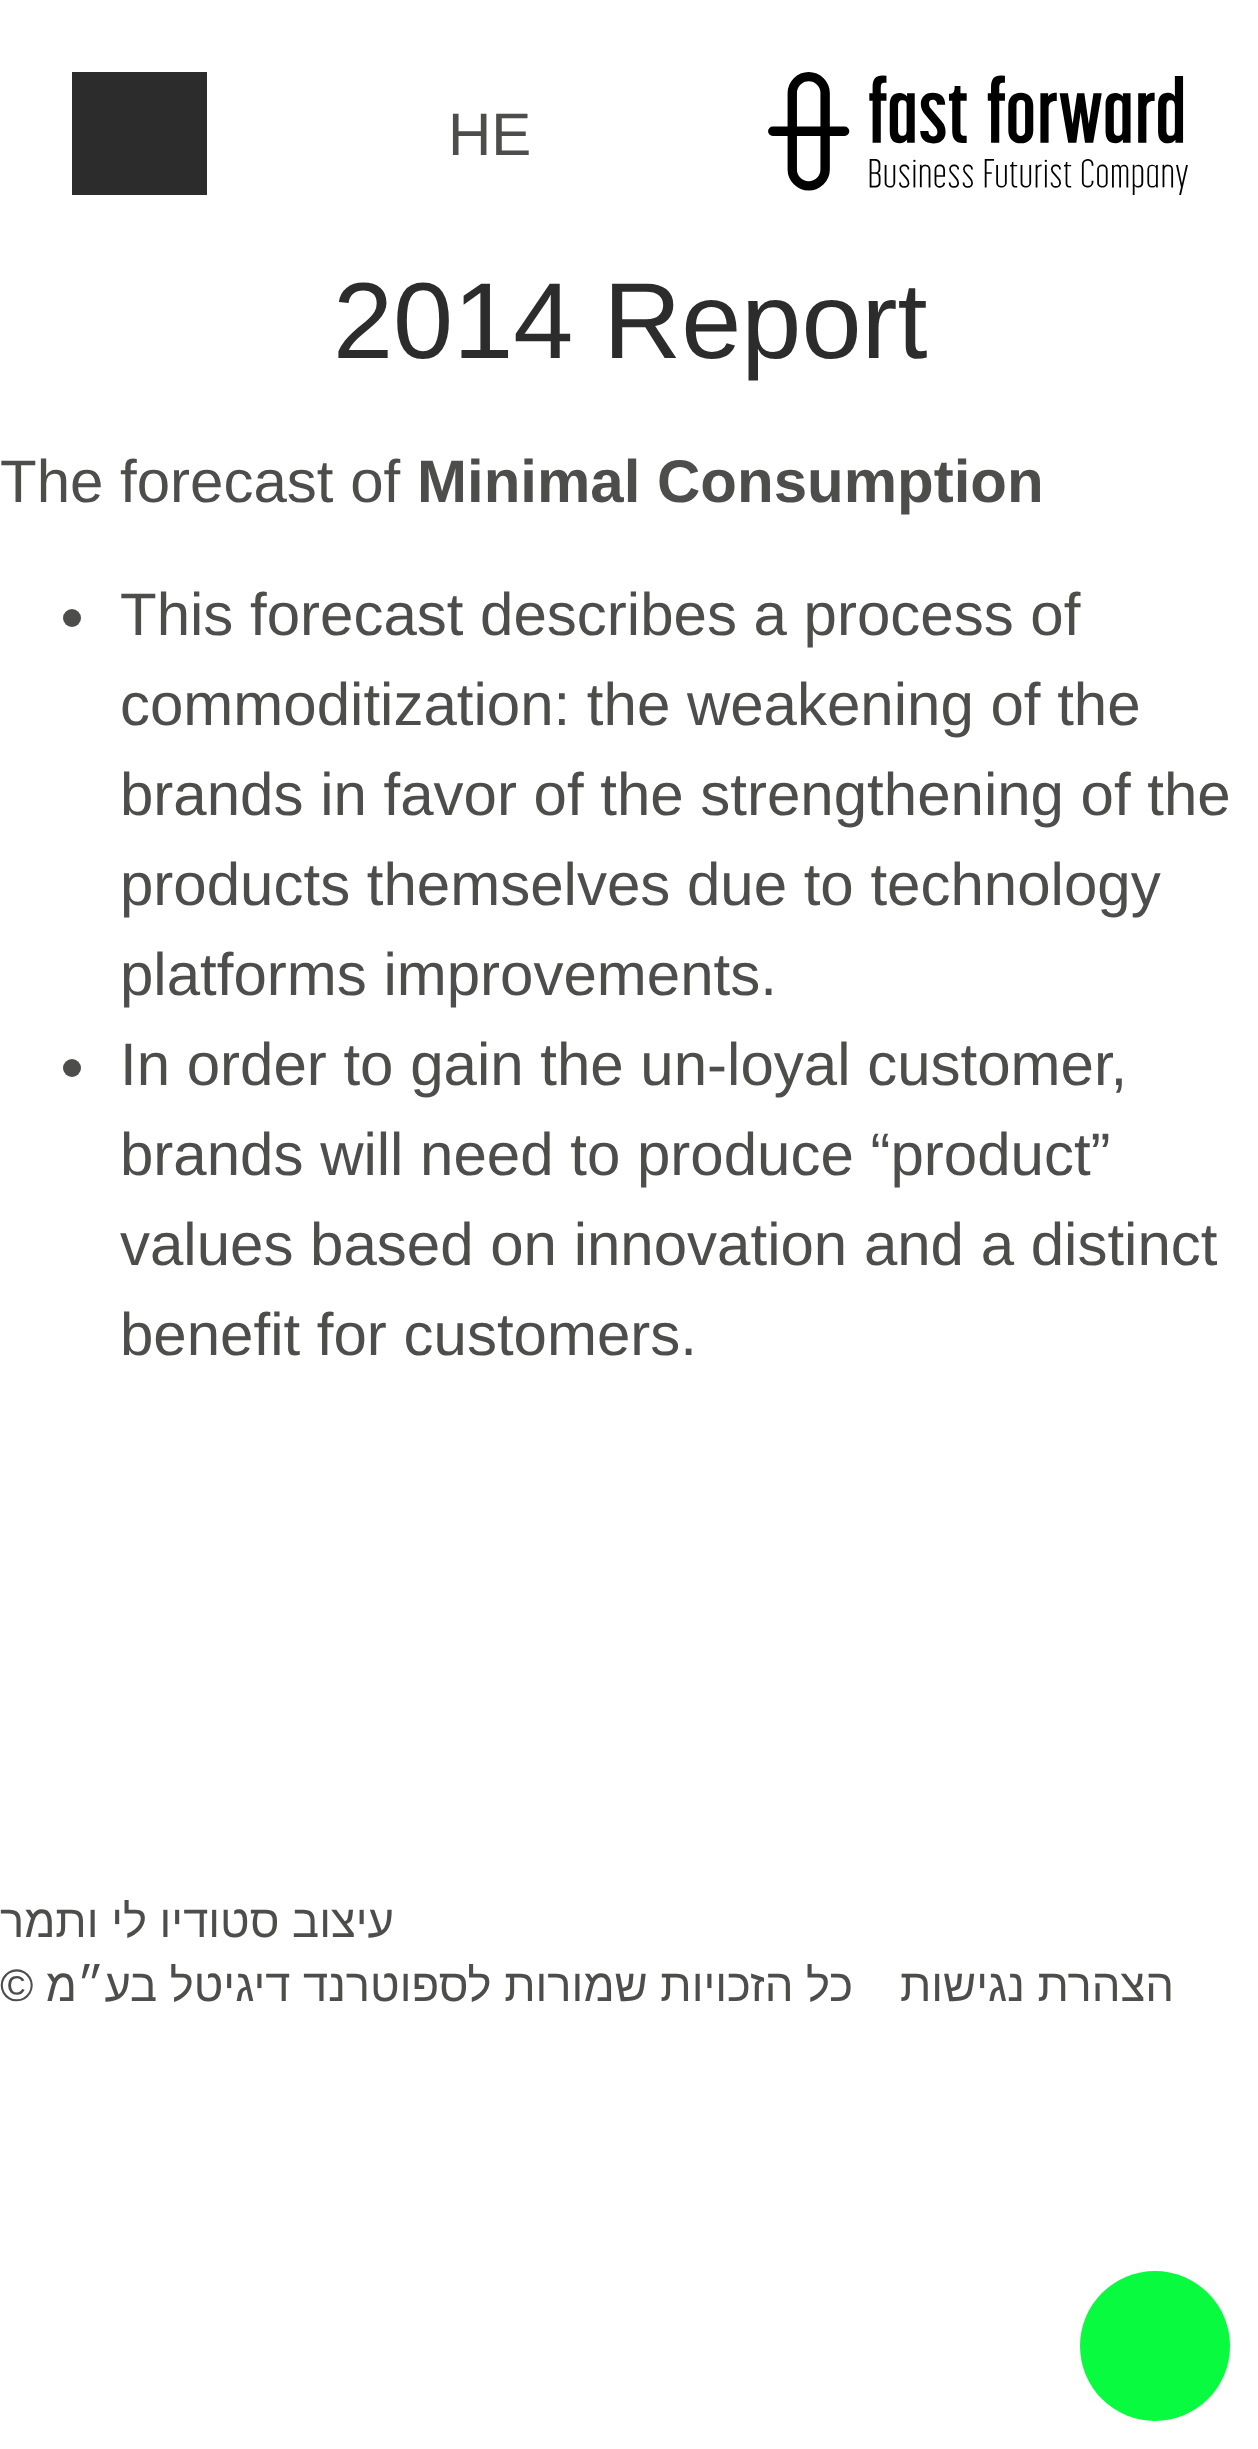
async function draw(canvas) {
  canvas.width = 1258
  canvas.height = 2449
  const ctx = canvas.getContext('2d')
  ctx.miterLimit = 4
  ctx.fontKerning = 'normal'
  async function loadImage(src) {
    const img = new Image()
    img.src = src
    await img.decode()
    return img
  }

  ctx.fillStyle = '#fff'
  ctx.fillRect(0, 0, 1258, 2449)
  ctx.fillStyle = '#2c2c2c'
  ctx.fillRect(72, 72, 135, 123)
  ctx.font = '60px Liberation Sans'
  ctx.fillStyle = '#4d4d4c'
  ctx.fillText('HE', 448, 155)
  ctx.drawImage(await loadImage('image0.png'), 768, 72, 420, 123)
  ctx.font = '108px Liberation Sans'
  ctx.fillStyle = '#2c2c2c'
  ctx.fillText('2014 Report', 333, 358)
  ctx.font = '60px Liberation Sans'
  ctx.fillStyle = '#4d4d4c'
  ctx.fillText('The forecast of', 0, 502)
  ctx.font = 'bold 60px Liberation Sans'
  ctx.fillText('Minimal Consumption', 417, 502)
  ctx.beginPath()
  ctx.arc(72, 618, 9, 0, 2 * Math.PI)
  ctx.fill()
  ctx.font = '60px Liberation Sans'
  ctx.fillText('This forecast describes a process of', 120, 635)
  ctx.fillText('commoditization: the weakening of the', 120, 725)
  ctx.fillText('brands in favor of the strengthening of the', 120, 815)
  ctx.fillText('products themselves due to technology', 120, 905)
  ctx.fillText('platforms improvements.', 120, 995)
  ctx.beginPath()
  ctx.arc(72, 1068, 9, 0, 2 * Math.PI)
  ctx.fill()
  ctx.fillText('In order to gain the un-loyal customer,', 120, 1085)
  ctx.fillText('brands will need to produce “product”', 120, 1175)
  ctx.fillText('values based on innovation and a distinct', 120, 1265)
  ctx.fillText('benefit for customers.', 120, 1355)
  ctx.direction = 'rtl'
  ctx.font = '45.4px Liberation Sans'
  ctx.fillText('עיצוב סטודיו לי ותמר', 394, 1937)
  ctx.direction = 'ltr'
  ctx.fillText('©', 0, 2001)
  ctx.direction = 'rtl'
  ctx.fillText('כל הזכויות שמורות לספוטרנד דיגיטל בע״מ', 853, 2001)
  ctx.fillText('הצהרת נגישות', 1174, 2001)
  ctx.fillStyle = '#09fb40'
  ctx.beginPath()
  ctx.arc(1155, 2346, 75, 0, 2 * Math.PI)
  ctx.fill()
}

draw(document.querySelector('canvas'))
